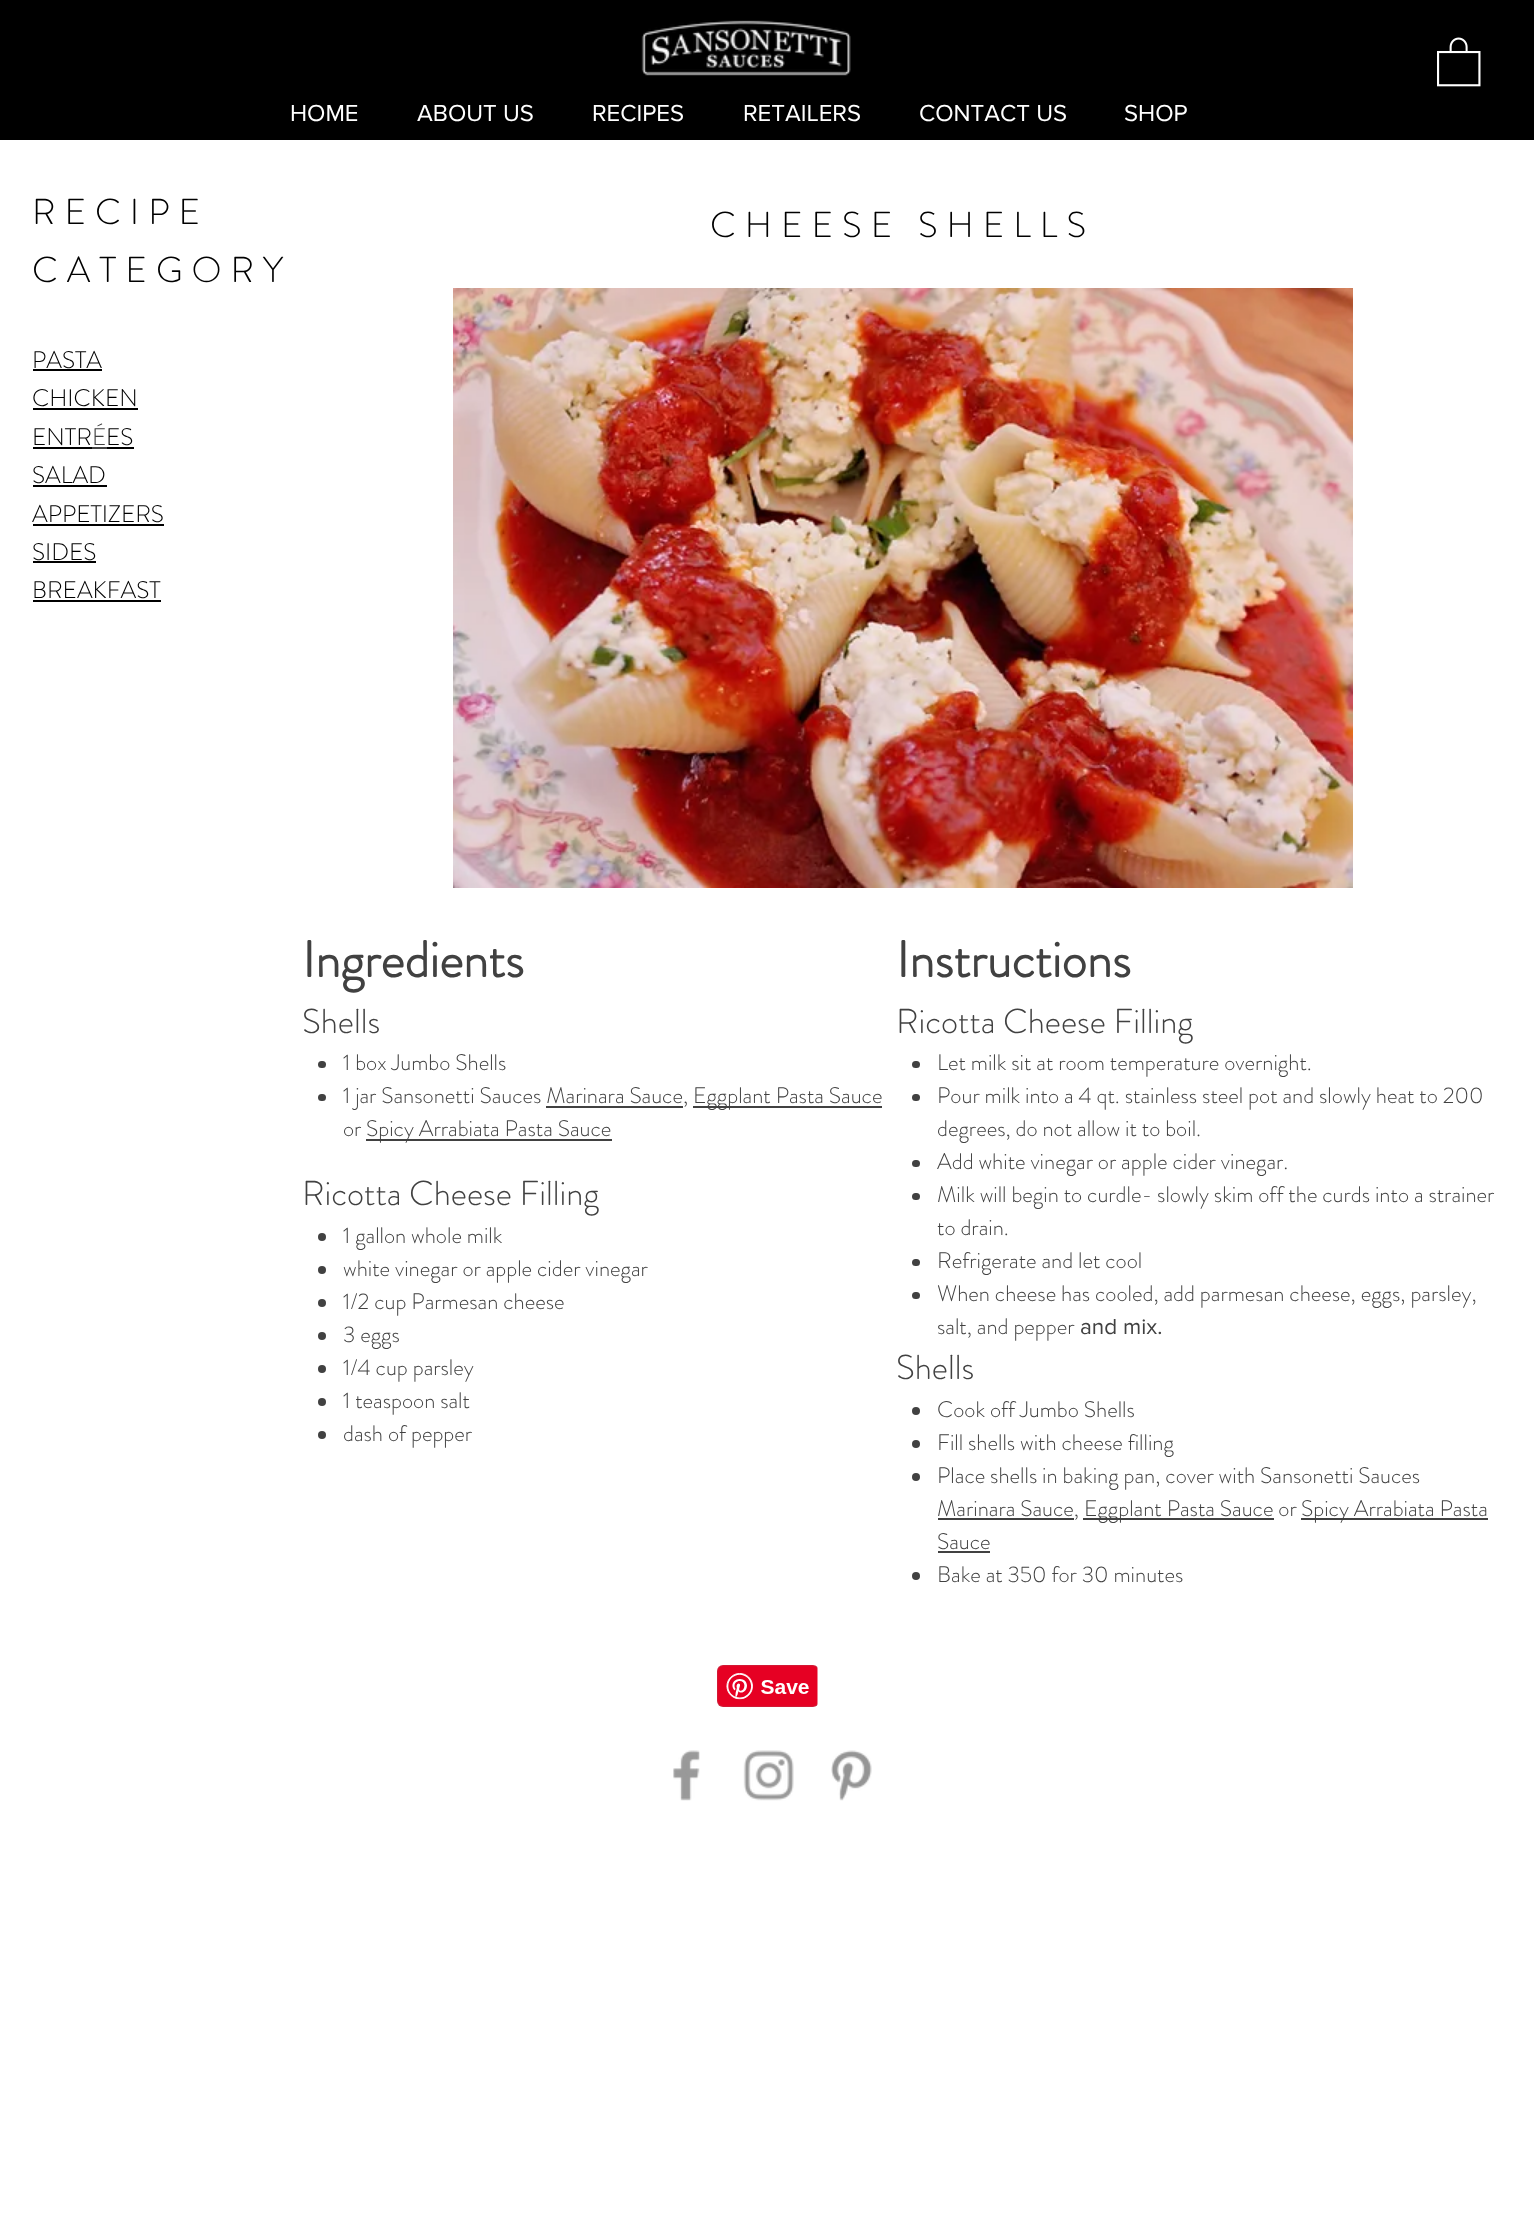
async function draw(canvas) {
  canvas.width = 1534
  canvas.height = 2237
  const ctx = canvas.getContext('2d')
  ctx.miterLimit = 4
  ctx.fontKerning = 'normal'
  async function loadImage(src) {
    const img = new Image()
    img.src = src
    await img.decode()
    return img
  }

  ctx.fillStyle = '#fff'
  ctx.fillRect(0, 0, 1534, 2237)
  ctx.fillStyle = '#000'
  ctx.fillRect(0, 0, 1534, 140)
  ctx.drawImage(await loadImage('image0.png'), 641, 20, 210, 56)
  ctx.drawImage(await loadImage('image1.png'), 1437, 37, 44, 50)
  ctx.font = '24px "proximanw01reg"'
  ctx.fillStyle = '#fff'
  ctx.fillText('HOME', 290, 121)
  ctx.fillText('ABOUT US', 417, 121)
  ctx.fillText('RECIPES', 592, 121)
  ctx.fillText('RETAILERS', 743, 121)
  ctx.fillText('CONTACT US', 919, 121)
  ctx.fillText('SHOP', 1124, 121)
  ctx.letterSpacing = '9px'
  ctx.font = '300 36px "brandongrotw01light"'
  ctx.fillStyle = '#000'
  ctx.fillText('RECIPE', 32, 224)
  ctx.fillText('CATEGORY', 32, 282)
  ctx.letterSpacing = '0px'
  ctx.font = '300 24px "brandongrotw01light"'
  ctx.fillText('PASTA', 32, 368)
  ctx.fillRect(33, 369, 69, 2)
  ctx.fillText('CHICKEN', 32, 406)
  ctx.fillRect(33, 408, 105, 2)
  ctx.fillText('ENTR', 32, 445)
  ctx.fillRect(33, 447, 59, 2)
  ctx.fillStyle = '#414141'
  ctx.fillRect(92, 447, 15, 2)
  ctx.fillText('É', 92, 445)
  ctx.fillStyle = '#000'
  ctx.fillText('ES', 106, 445)
  ctx.fillRect(107, 447, 27, 2)
  ctx.fillText('SALAD', 32, 483)
  ctx.fillRect(33, 485, 74, 2)
  ctx.fillText('APPETIZERS', 32, 522)
  ctx.fillRect(33, 524, 131, 2)
  ctx.fillText('SIDES', 32, 560)
  ctx.fillRect(33, 561, 63, 2)
  ctx.fillText('BREAKFAST', 32, 598)
  ctx.fillRect(33, 600, 128, 2)
  ctx.letterSpacing = '9px'
  ctx.font = '300 36px "brandongrotw01light"'
  ctx.fillText('CHEESE SHELLS', 710, 237)
  ctx.drawImage(await loadImage('image2.png'), 453, 288, 900, 600)
  ctx.letterSpacing = '0px'
  ctx.font = 'bold 51px "brandongrotw01light"'
  ctx.fillStyle = '#414141'
  ctx.fillText('Ingredients', 302, 977)
  ctx.font = '300 34.5px "brandongrotw01light"'
  ctx.fillText('Shells', 302, 1033)
  ctx.beginPath()
  ctx.roundRect(318, 1061, 8, 7, 3.5)
  ctx.fill()
  ctx.font = '300 22.5px "brandongrotw01light"'
  ctx.fillText('1 box Jumbo Shells', 343, 1070)
  ctx.beginPath()
  ctx.roundRect(318, 1094, 8, 7, 3.5)
  ctx.fill()
  ctx.fillText('1 jar Sansonetti Sauces Marinara Sauce,', 343, 1103)
  ctx.fillRect(693, 1106, 189, 2)
  ctx.fillText('Eggplant Pasta Sauce', 693, 1103)
  ctx.fillRect(546, 1106, 137, 2)
  ctx.fillText('or', 343, 1136)
  ctx.fillRect(366, 1139, 246, 2)
  ctx.fillText('Spicy Arrabiata Pasta Sauce', 366, 1136)
  ctx.font = '300 34.5px "brandongrotw01light"'
  ctx.fillText('Ricotta Cheese Filling', 302, 1205)
  ctx.beginPath()
  ctx.arc(322, 1237, 4, 0, 2 * Math.PI)
  ctx.fill()
  ctx.font = '300 22.5px "brandongrotw01light"'
  ctx.fillText('1 gallon whole milk', 343, 1243)
  ctx.beginPath()
  ctx.arc(322, 1270, 4, 0, 2 * Math.PI)
  ctx.fill()
  ctx.fillText('white vinegar or apple cider vinegar', 343, 1276)
  ctx.beginPath()
  ctx.arc(322, 1303, 4, 0, 2 * Math.PI)
  ctx.fill()
  ctx.fillText('1/2 cup Parmesan cheese', 343, 1309)
  ctx.beginPath()
  ctx.arc(322, 1336, 4, 0, 2 * Math.PI)
  ctx.fill()
  ctx.fillText('3 eggs', 343, 1342)
  ctx.beginPath()
  ctx.arc(322, 1369, 4, 0, 2 * Math.PI)
  ctx.fill()
  ctx.fillText('1/4 cup parsley', 343, 1375)
  ctx.beginPath()
  ctx.arc(322, 1402, 4, 0, 2 * Math.PI)
  ctx.fill()
  ctx.fillText('1 teaspoon salt', 343, 1408)
  ctx.beginPath()
  ctx.arc(322, 1435, 4, 0, 2 * Math.PI)
  ctx.fill()
  ctx.fillText('dash of pepper', 343, 1441)
  ctx.font = 'bold 51px "brandongrotw01light"'
  ctx.fillText('Instructions', 896, 977)
  ctx.font = '300 34.5px "brandongrotw01light"'
  ctx.fillText('Ricotta Cheese Filling', 896, 1033)
  ctx.beginPath()
  ctx.roundRect(912, 1061, 8, 7, 3.5)
  ctx.fill()
  ctx.font = '300 22.5px "brandongrotw01light"'
  ctx.fillText('Let milk sit at room temperature overnight.', 937, 1070)
  ctx.beginPath()
  ctx.roundRect(912, 1094, 8, 7, 3.5)
  ctx.fill()
  ctx.fillText('Pour milk into a 4 qt. stainless steel pot and slowly heat to 200', 937, 1103)
  ctx.fillText('degrees, do not allow it to boil.', 937, 1136)
  ctx.beginPath()
  ctx.roundRect(912, 1160, 8, 7, 3.5)
  ctx.fill()
  ctx.fillText('Add white vinegar or apple cider vinegar.', 937, 1169)
  ctx.beginPath()
  ctx.roundRect(912, 1193, 8, 7, 3.5)
  ctx.fill()
  ctx.fillText('Milk will begin to curdle- slowly skim off the curds into a strainer', 937, 1202)
  ctx.fillText('to drain.', 937, 1235)
  ctx.beginPath()
  ctx.roundRect(912, 1259, 8, 7, 3.5)
  ctx.fill()
  ctx.fillText('Refrigerate and let cool', 937, 1268)
  ctx.beginPath()
  ctx.roundRect(912, 1292, 8, 7, 3.5)
  ctx.fill()
  ctx.fillText('When cheese has cooled, add parmesan cheese, eggs, parsley,', 937, 1301)
  ctx.fillText('salt, and pepper', 937, 1334)
  ctx.font = '22.5px "proximanw01reg"'
  ctx.fillText('and mix.', 1080, 1334)
  ctx.font = '300 34.5px "brandongrotw01light"'
  ctx.fillText('Shells', 896, 1379)
  ctx.beginPath()
  ctx.arc(916, 1411, 4, 0, 2 * Math.PI)
  ctx.fill()
  ctx.font = '300 22.5px "brandongrotw01light"'
  ctx.fillText('Cook off Jumbo Shells', 937, 1417)
  ctx.beginPath()
  ctx.arc(916, 1444, 4, 0, 2 * Math.PI)
  ctx.fill()
  ctx.fillText('Fill shells with cheese filling', 937, 1450)
  ctx.beginPath()
  ctx.arc(916, 1477, 4, 0, 2 * Math.PI)
  ctx.fill()
  ctx.fillText('Place shells in baking pan, cover with Sansonetti Sauces', 937, 1483)
  ctx.fillRect(938, 1518, 136, 2)
  ctx.fillText('Marinara Sauce,', 937, 1516)
  ctx.fillRect(1083, 1518, 191, 2)
  ctx.fillText('Eggplant Pasta Sauce or', 1084, 1516)
  ctx.fillRect(1301, 1518, 187, 2)
  ctx.fillText('Spicy Arrabiata Pasta', 1301, 1516)
  ctx.fillText('Sauce', 937, 1549)
  ctx.fillRect(938, 1551, 52, 2)
  ctx.beginPath()
  ctx.arc(916, 1576, 4, 0, 2 * Math.PI)
  ctx.fill()
  ctx.fillText('Bake at 350 for 30 minutes', 937, 1582)
  ctx.drawImage(await loadImage('image3.png'), 717, 1665, 101, 42)
  ctx.drawImage(await loadImage('image4.png'), 673, 1750, 27, 51)
  ctx.drawImage(await loadImage('image5.png'), 743, 1750, 51, 51)
  ctx.drawImage(await loadImage('image6.png'), 831, 1750, 41, 51)
}

draw(document.querySelector('canvas'))
